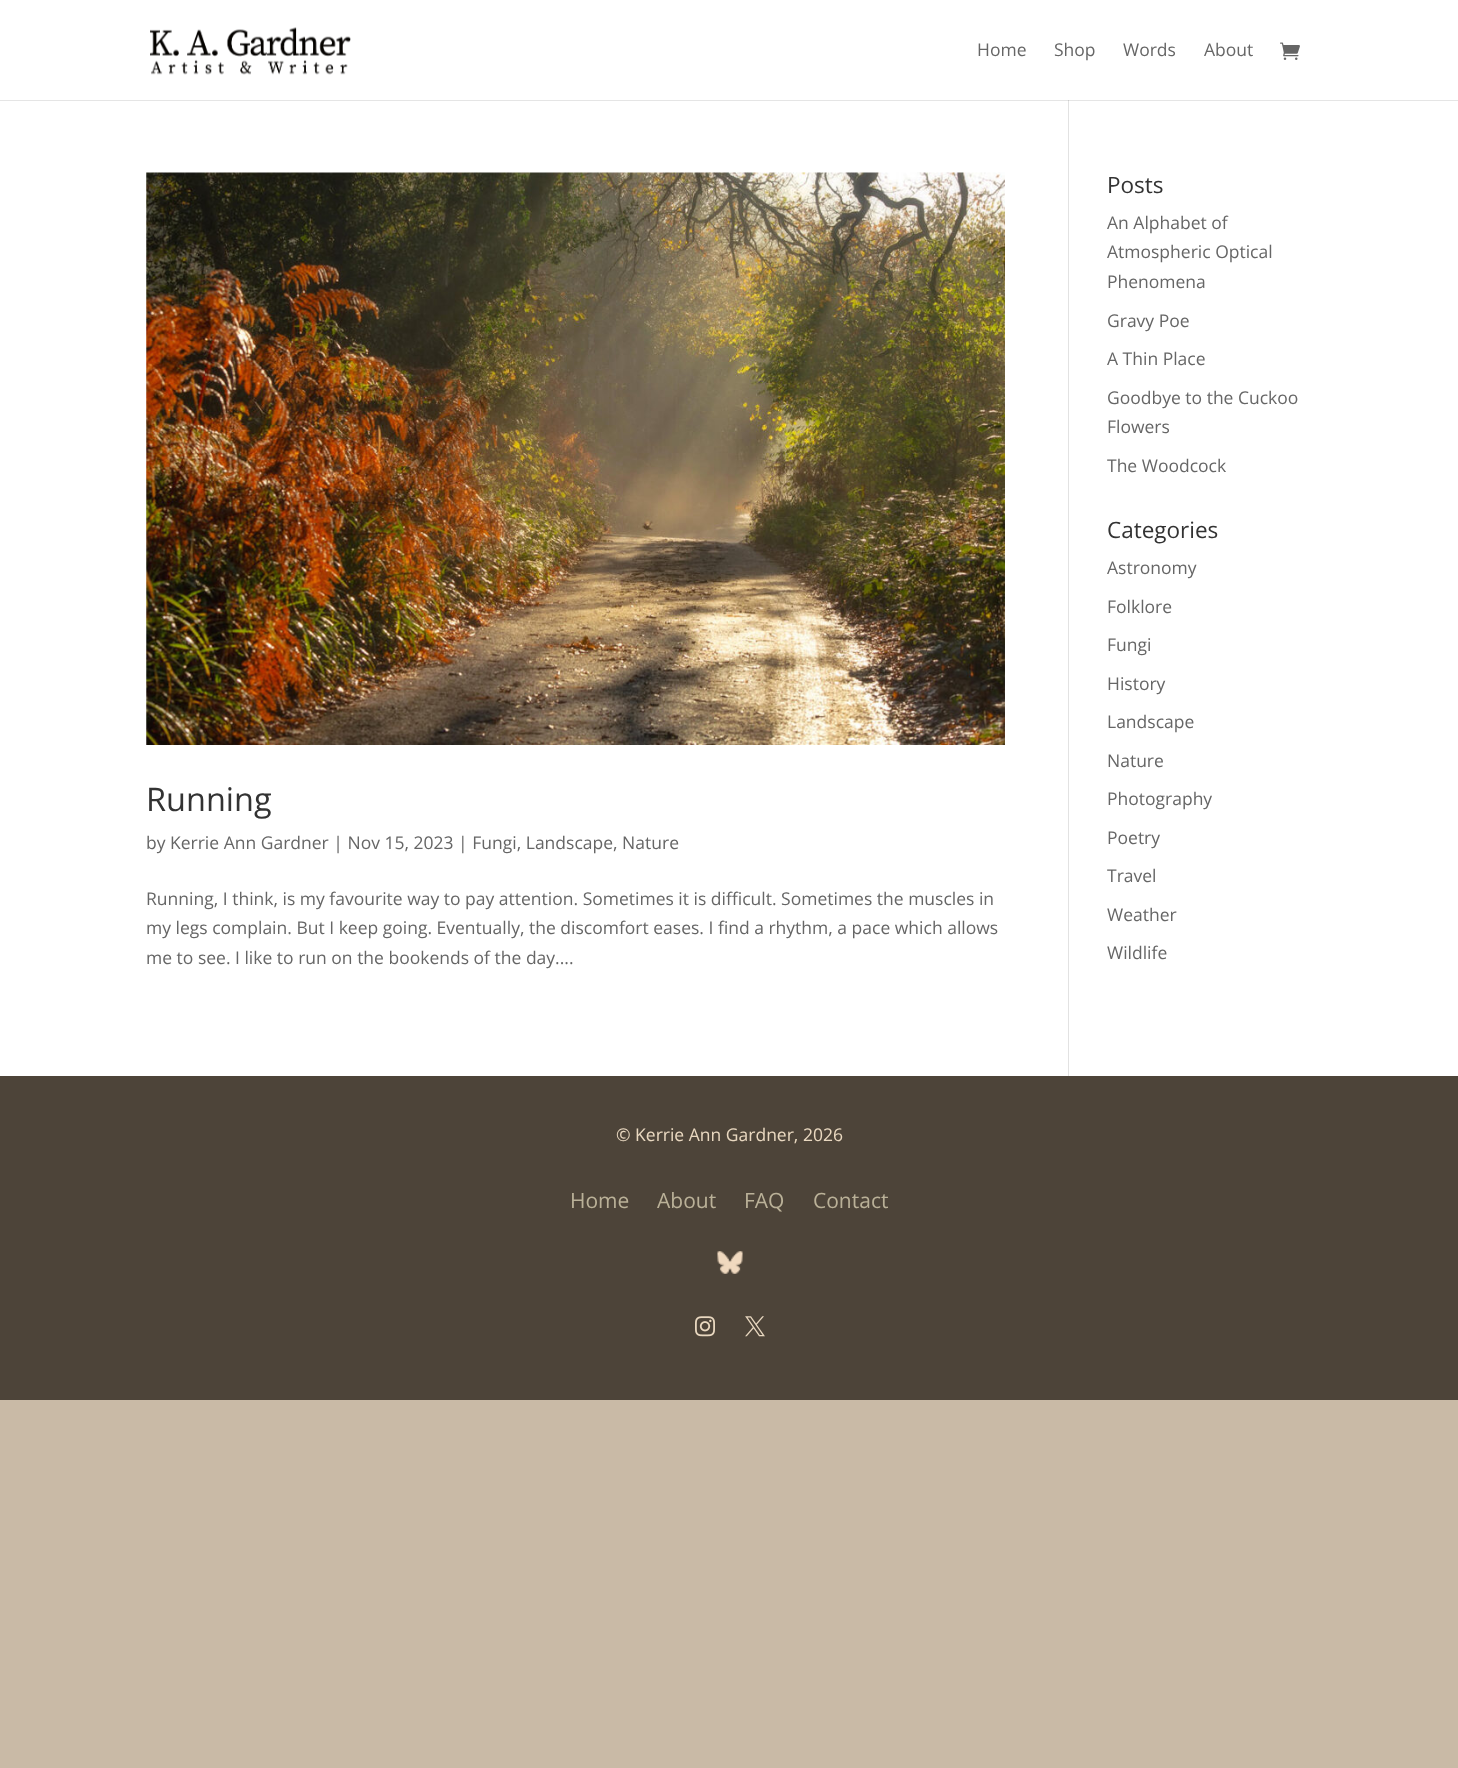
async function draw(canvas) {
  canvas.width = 1458
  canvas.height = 1768
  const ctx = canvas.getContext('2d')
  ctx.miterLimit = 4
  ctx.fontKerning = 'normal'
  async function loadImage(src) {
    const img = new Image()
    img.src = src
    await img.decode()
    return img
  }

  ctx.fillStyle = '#c9baa6'
  ctx.fillRect(0, 0, 1458, 1768)
  ctx.fillStyle = '#fff'
  ctx.fillRect(0, 0, 1458, 1076)
  ctx.fillStyle = '#e2e2e2'
  ctx.fillRect(1068, 100, 1, 976)
  ctx.fillStyle = '#0000001a'
  ctx.beginPath()
  ctx.moveTo(0, 100)
  ctx.lineTo(0, 101)
  ctx.lineTo(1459, 101)
  ctx.lineTo(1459, 1)
  ctx.lineTo(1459, 100)
  ctx.closePath()
  ctx.fill()
  ctx.drawImage(await loadImage('image0.png'), 150, 27, 201, 48)
  ctx.font = '17.5px Open Sans'
  ctx.fillStyle = '#666'
  ctx.fillText('Home', 977, 56)
  ctx.fillText('Shop', 1054, 56)
  ctx.fillText('Words', 1123, 56)
  ctx.fillText('About', 1204, 56)
  ctx.drawImage(await loadImage('image1.png'), 1280, 42, 20, 18)
  ctx.drawImage(await loadImage('image2.png'), 146, 172, 859, 573)
  ctx.font = '32.5px Open Sans'
  ctx.fillStyle = '#333'
  ctx.fillText('Running', 146, 811)
  ctx.font = '17.5px Open Sans'
  ctx.fillStyle = '#666'
  ctx.fillText('by Kerrie Ann Gardner | Nov 15, 2023 | Fungi, Landscape, Nature', 146, 849)
  ctx.fillText('Running, I think, is my favourite way to pay attention. Sometimes it is difficult. Sometimes the muscles in', 146, 905)
  ctx.fillText('my legs complain. But I keep going. Eventually, the discomfort eases. I find a rhythm, a pace which allows', 146, 934)
  ctx.fillText('me to see. I like to run on the bookends of the day....', 146, 964)
  ctx.font = '22.5px Open Sans'
  ctx.fillStyle = '#333'
  ctx.fillText('Posts', 1107, 193)
  ctx.font = '17.5px Open Sans'
  ctx.fillStyle = '#666'
  ctx.fillText('An Alphabet of', 1107, 229)
  ctx.fillText('Atmospheric Optical', 1107, 258)
  ctx.fillText('Phenomena', 1107, 288)
  ctx.fillText('Gravy Poe', 1107, 327)
  ctx.fillText('A Thin Place', 1107, 365)
  ctx.fillText('Goodbye to the Cuckoo', 1107, 404)
  ctx.fillText('Flowers', 1107, 433)
  ctx.fillText('The Woodcock', 1107, 472)
  ctx.font = '22.5px Open Sans'
  ctx.fillStyle = '#333'
  ctx.fillText('Categories', 1107, 538)
  ctx.font = '17.5px Open Sans'
  ctx.fillStyle = '#666'
  ctx.fillText('Astronomy', 1107, 574)
  ctx.fillText('Folklore', 1107, 613)
  ctx.fillText('Fungi', 1107, 651)
  ctx.fillText('History', 1107, 690)
  ctx.fillText('Landscape', 1107, 728)
  ctx.fillText('Nature', 1107, 767)
  ctx.fillText('Photography', 1107, 805)
  ctx.fillText('Poetry', 1107, 844)
  ctx.fillText('Travel', 1107, 882)
  ctx.fillText('Weather', 1107, 921)
  ctx.fillText('Wildlife', 1107, 959)
  ctx.fillStyle = '#4d4439'
  ctx.fillRect(0, 1076, 1458, 324)
  ctx.fillStyle = '#e9d8c0'
  ctx.fillText('© Kerrie Ann Gardner, 2026', 616, 1141)
  ctx.font = '21px Open Sans'
  ctx.fillStyle = '#bab198'
  ctx.fillText('Home', 570, 1208)
  ctx.fillText('About', 657, 1208)
  ctx.fillText('FAQ', 744, 1208)
  ctx.fillText('Contact', 813, 1208)
  ctx.drawImage(await loadImage('image3.png'), 717, 1251, 26, 23)
  ctx.drawImage(await loadImage('image4.png'), 695, 1316, 20, 21)
  ctx.drawImage(await loadImage('image5.png'), 745, 1316, 20, 21)
}

draw(document.querySelector('canvas'))
